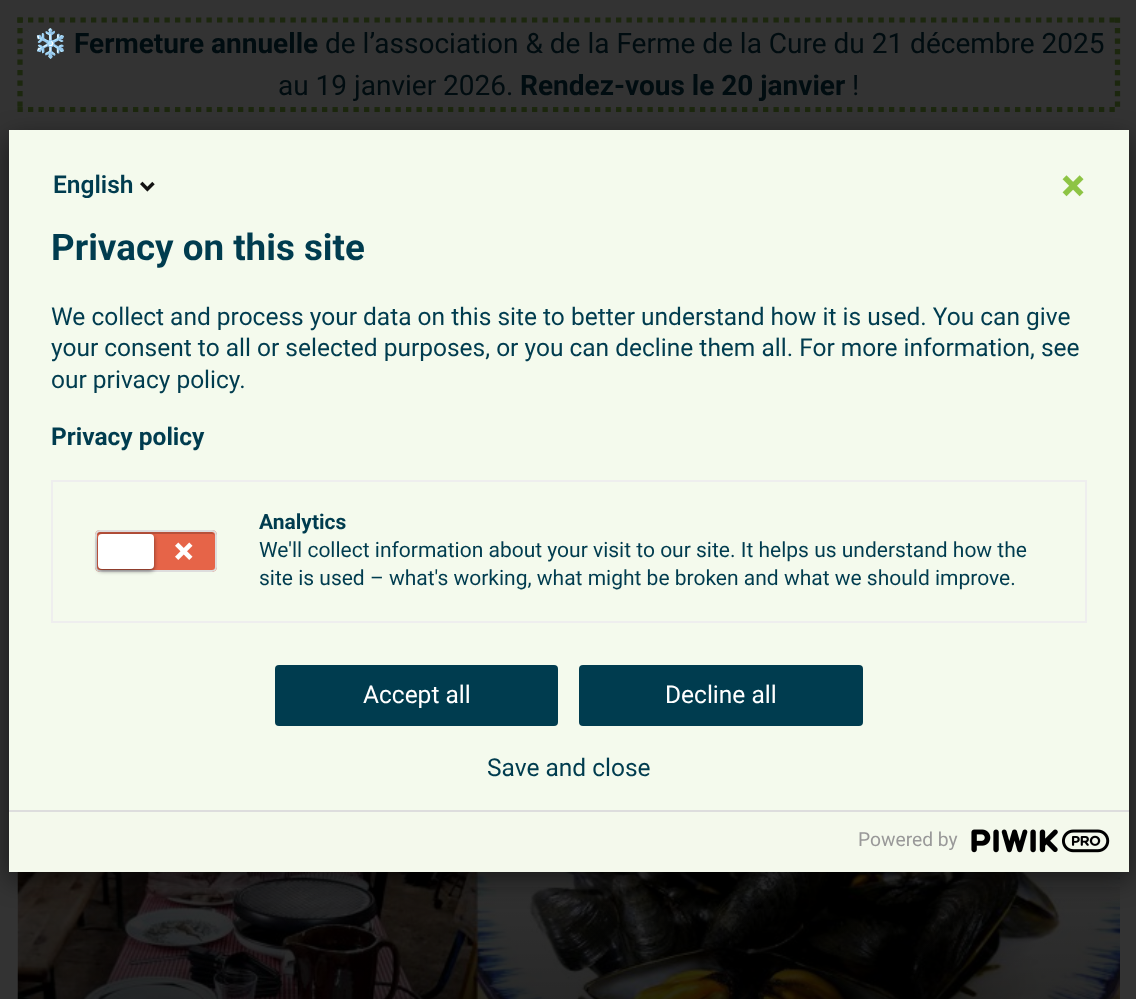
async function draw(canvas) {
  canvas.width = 1136
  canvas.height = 999
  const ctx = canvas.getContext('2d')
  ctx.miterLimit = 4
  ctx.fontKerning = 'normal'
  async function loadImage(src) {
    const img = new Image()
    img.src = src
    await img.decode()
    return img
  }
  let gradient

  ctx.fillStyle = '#333'
  ctx.fillRect(0, 0, 1136, 999)
  ctx.beginPath()
  ctx.moveTo(17.5, 20)
  ctx.lineTo(1120, 20)
  ctx.strokeStyle = '#1c270e'
  ctx.lineWidth = 5.2
  ctx.setLineDash([5.25, 5.25])
  ctx.stroke()
  ctx.beginPath()
  ctx.moveTo(1117.5, 17.5)
  ctx.lineTo(1117.5, 112)
  ctx.stroke()
  ctx.beginPath()
  ctx.moveTo(17.5, 109.5)
  ctx.lineTo(1120, 109.5)
  ctx.stroke()
  ctx.beginPath()
  ctx.moveTo(20, 17.5)
  ctx.lineTo(20, 112)
  ctx.stroke()
  ctx.font = '28px Noto Color Emoji'
  ctx.fillStyle = '#000c10'
  ctx.fillText('❄️', 33, 53)
  ctx.font = 'bold 28px Roboto'
  ctx.fillText('Fermeture annuelle', 74, 53)
  ctx.font = '28px Roboto'
  ctx.fillText('de l’association & de la Ferme de la Cure du 21 décembre 2025', 325, 53)
  ctx.fillText('au 19 janvier 2026.', 278, 95)
  ctx.font = 'bold 28px Roboto'
  ctx.fillText('Rendez-vous le 20 janvier', 520, 95)
  ctx.font = '28px Roboto'
  ctx.fillText('!', 852, 95)
  ctx.drawImage(await loadImage('image4.png'), 17, 872, 1103, 127)
  gradient = ctx.createLinearGradient(569, 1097, 569, 767)
  gradient.addColorStop(0, '#00000059')
  gradient.addColorStop(0.75, '#00000000')
  ctx.fillStyle = gradient
  ctx.fillRect(18, 887, 1102, 112)
  ctx.fillStyle = '#00000080'
  ctx.filter = 'blur(13px)'
  ctx.beginPath()
  ctx.rect(9, 138, 1120, 742)
  ctx.fill()
  ctx.filter = 'none'
  ctx.fillStyle = '#f4faed'
  ctx.fillRect(9, 130, 1120, 680)
  ctx.font = '600 24.5px Roboto'
  ctx.fillStyle = '#003c4f'
  ctx.fillText('English', 53, 193)
  ctx.drawImage(await loadImage('image0.png'), 140, 181, 15, 11)
  ctx.drawImage(await loadImage('image1.png'), 1062, 175, 22, 22)
  ctx.font = 'bold 36.75px Roboto'
  ctx.fillText('Privacy on this site', 51, 260)
  ctx.font = '24.5px Roboto'
  ctx.fillText('We collect and process your data on this site to better understand how it is used. You can give', 51, 325)
  ctx.fillText('your consent to all or selected purposes, or you can decline them all. For more information, see', 51, 356)
  ctx.fillText('our privacy policy.', 51, 388)
  ctx.font = 'bold 24.5px Roboto'
  ctx.fillText('Privacy policy', 51, 445)
  ctx.strokeStyle = '#eee'
  ctx.lineWidth = 2
  ctx.setLineDash([])
  ctx.strokeRect(52, 481, 1034, 141)
  ctx.fillStyle = '#e66448'
  ctx.beginPath()
  ctx.roundRect(95, 530, 122, 42, 5)
  ctx.fill()
  ctx.fillStyle = '#b8503a'
  ctx.beginPath()
  ctx.moveTo(100, 534)
  ctx.lineTo(212, 534)
  ctx.bezierCurveTo(214, 534, 215, 535, 215, 537)
  ctx.bezierCurveTo(215, 527, 196, 532, 192, 532)
  ctx.lineTo(118, 532)
  ctx.bezierCurveTo(115, 532, 96, 527, 96, 537)
  ctx.bezierCurveTo(96, 535, 98, 534, 100, 534)
  ctx.closePath()
  ctx.fill()
  ctx.beginPath()
  ctx.roundRect(96, 531, 120, 40, 4)
  ctx.strokeStyle = '#ddd'
  ctx.stroke()
  ctx.fillStyle = '#00000080'
  ctx.filter = 'blur(2px)'
  ctx.beginPath()
  ctx.roundRect(98, 536, 56, 35, 4)
  ctx.fill()
  ctx.filter = 'none'
  ctx.fillStyle = '#fff'
  ctx.beginPath()
  ctx.roundRect(98, 534, 56, 35, 4)
  ctx.fill()
  ctx.drawImage(await loadImage('image2.png'), 175, 542, 18, 18)
  ctx.font = 'bold 21px Roboto'
  ctx.fillStyle = '#003c4f'
  ctx.fillText('Analytics', 259, 529)
  ctx.font = '21px Roboto'
  ctx.fillText('We\'ll collect information about your visit to our site. It helps us understand how the', 259, 557)
  ctx.fillText('site is used – what\'s working, what might be broken and what we should improve.', 259, 585)
  ctx.beginPath()
  ctx.roundRect(275, 665, 283, 61, 4)
  ctx.fill()
  ctx.font = '24.5px Roboto'
  ctx.fillStyle = '#fff'
  ctx.fillText('Accept all', 363, 703)
  ctx.fillStyle = '#003c4f'
  ctx.beginPath()
  ctx.roundRect(579, 665, 284, 61, 4)
  ctx.fill()
  ctx.fillStyle = '#fff'
  ctx.fillText('Decline all', 665, 703)
  ctx.fillStyle = '#003c4f'
  ctx.fillText('Save and close', 487, 776)
  ctx.fillStyle = '#f4f9ec'
  ctx.fillRect(9, 812, 1120, 60)
  ctx.fillStyle = '#ddd'
  ctx.fillRect(9, 810, 1120, 2)
  ctx.font = '19.25px Roboto'
  ctx.fillStyle = '#999'
  ctx.fillText('Powered by', 858, 846)
  ctx.drawImage(await loadImage('image3.png'), 971, 829, 139, 24)
}

draw(document.querySelector('canvas'))
